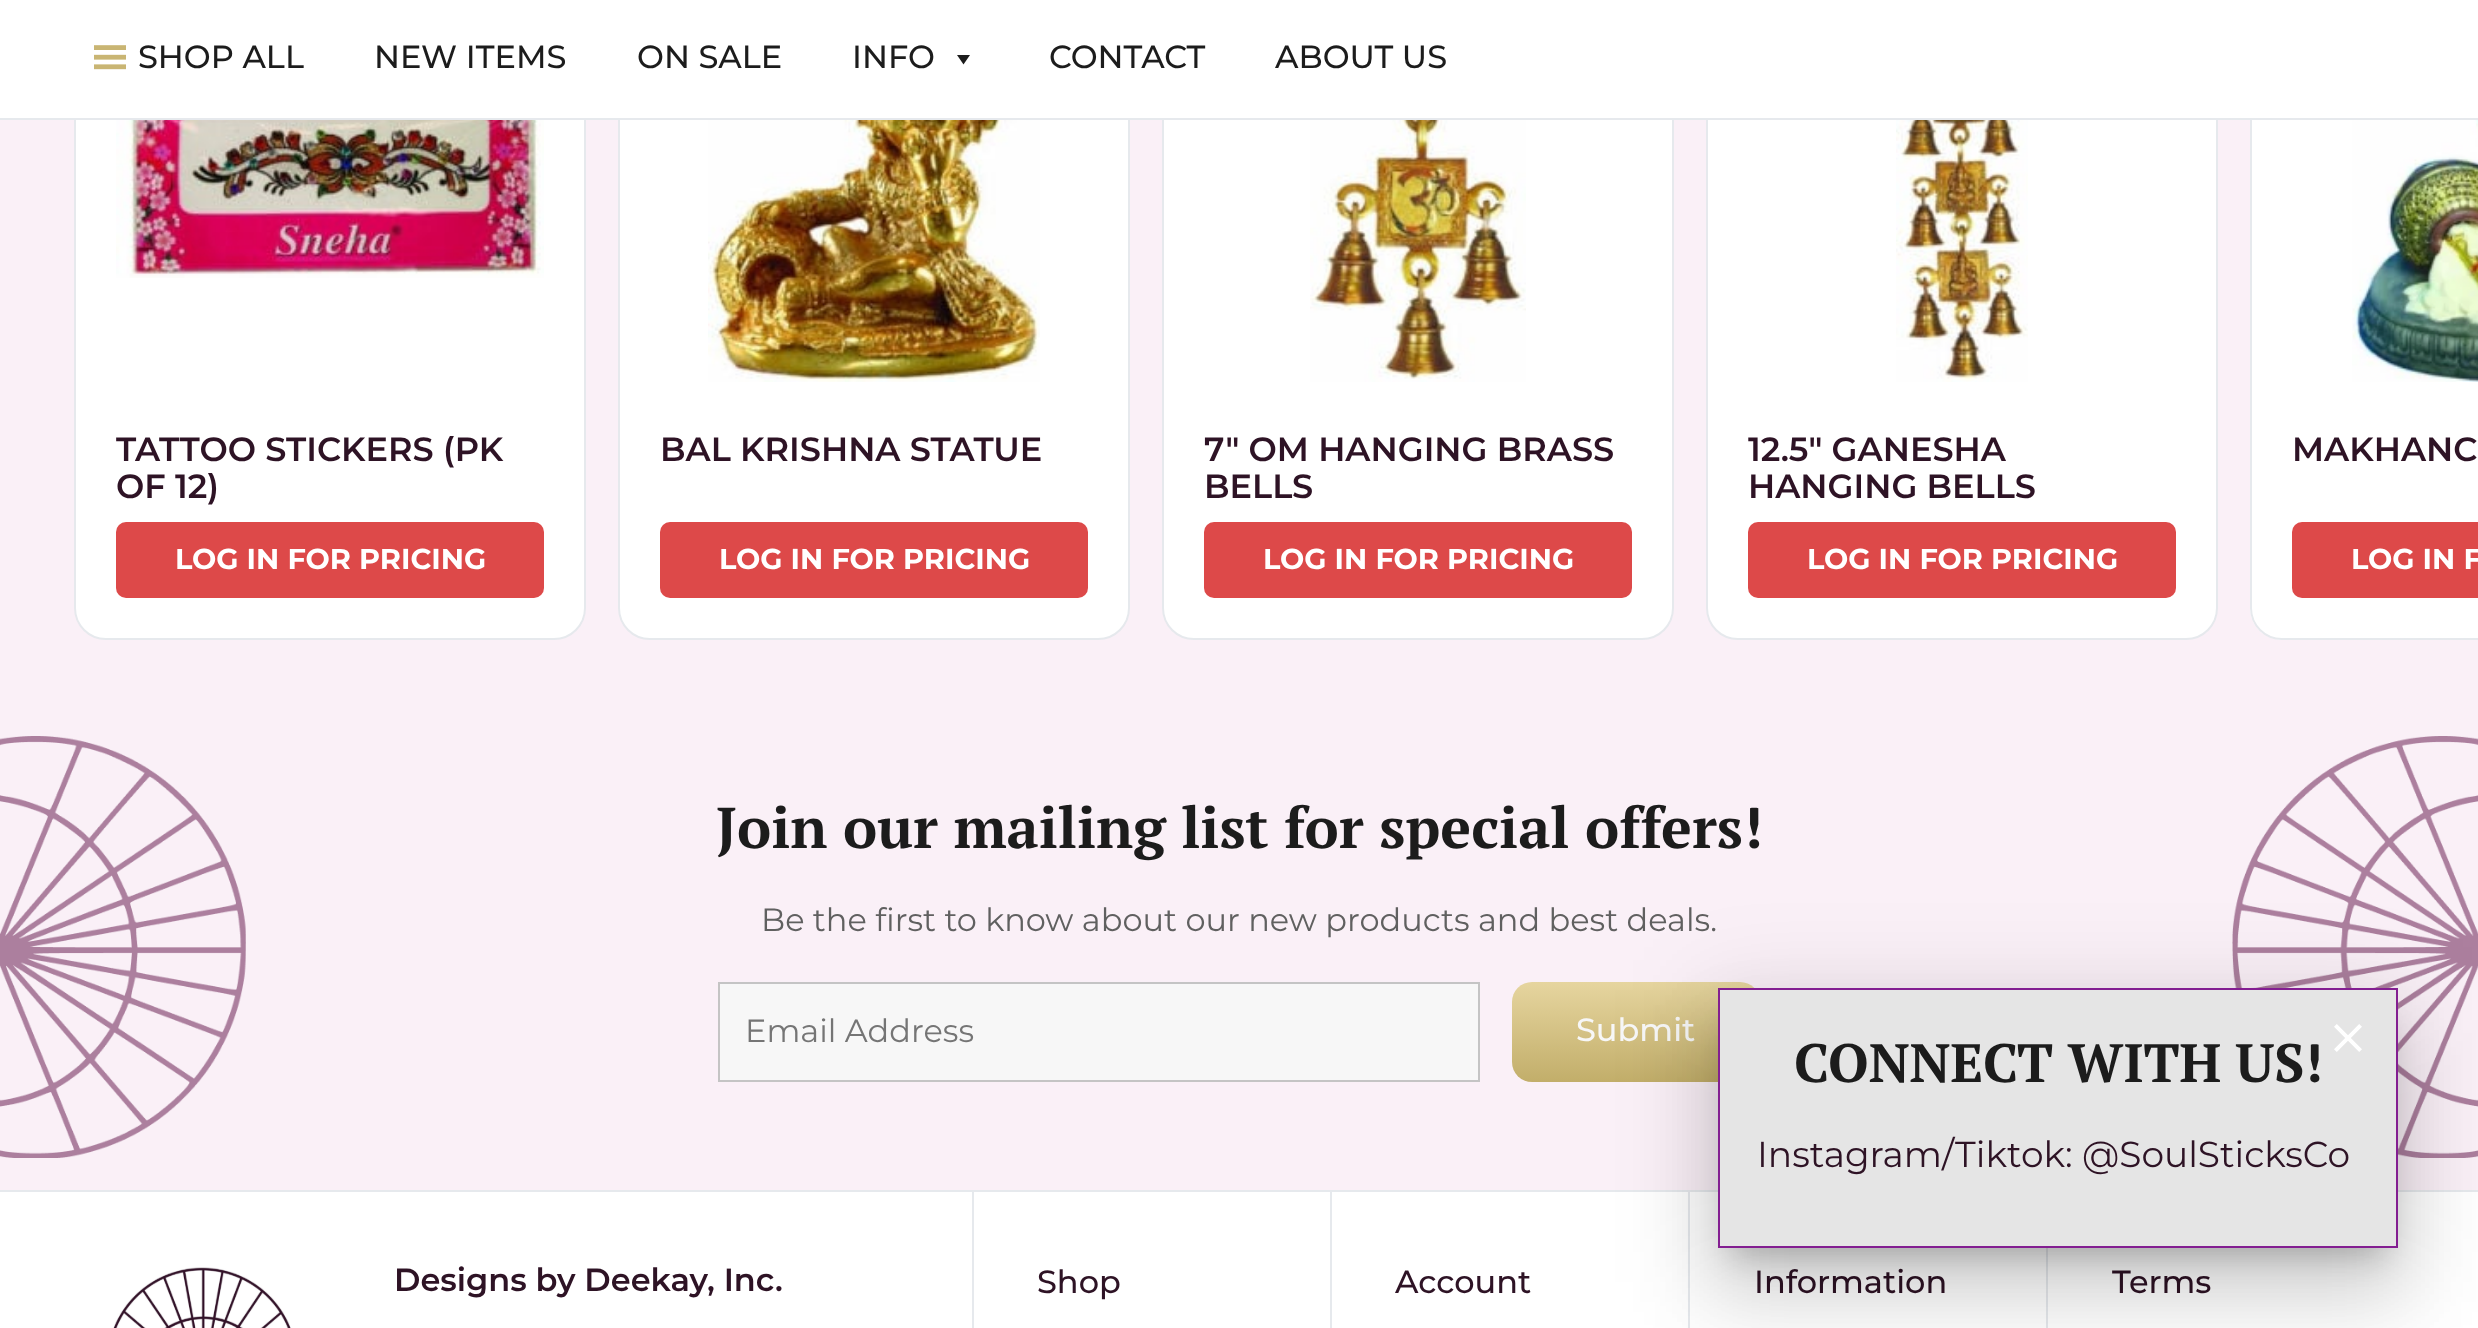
async function draw(canvas) {
  canvas.width = 2478
  canvas.height = 1328
  const ctx = canvas.getContext('2d')
  ctx.miterLimit = 4
  ctx.fontKerning = 'normal'
  async function loadImage(src) {
    const img = new Image()
    img.src = src
    await img.decode()
    return img
  }
  let gradient

  ctx.fillStyle = '#fff'
  ctx.fillRect(0, 0, 2478, 1328)
  ctx.fillStyle = '#faf0f7'
  ctx.fillRect(0, 120, 2478, 1070)
  ctx.fillStyle = '#fff'
  ctx.beginPath()
  ctx.roundRect(75, -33, 510, 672, 31)
  ctx.fill()
  ctx.strokeStyle = '#e6e9ed'
  ctx.lineWidth = 2
  ctx.stroke()
  ctx.beginPath()
  ctx.roundRect(619, -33, 510, 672, 31)
  ctx.fill()
  ctx.stroke()
  ctx.beginPath()
  ctx.roundRect(1163, -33, 510, 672, 31)
  ctx.fill()
  ctx.stroke()
  ctx.beginPath()
  ctx.roundRect(1707, -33, 510, 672, 31)
  ctx.fill()
  ctx.stroke()
  ctx.beginPath()
  ctx.moveTo(2282, -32)
  ctx.lineTo(2478, -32)
  ctx.lineTo(2478, 640)
  ctx.lineTo(2282, 640)
  ctx.bezierCurveTo(2264.5, 640, 2250, 625.5, 2250, 608)
  ctx.lineTo(2250, 0)
  ctx.bezierCurveTo(2250, -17.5, 2264.5, -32, 2282, -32)
  ctx.closePath()
  ctx.fill()
  ctx.beginPath()
  ctx.roundRect(2251, -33, 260, 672, 31)
  ctx.stroke()
  ctx.fillRect(74, 0, 2178, 118)
  ctx.fillStyle = '#e6e9ed'
  ctx.fillRect(0, 118, 2478, 2)
  ctx.drawImage(await loadImage('image0.png'), 94, 45, 32, 25)
  ctx.font = '500 32px Montserrat'
  ctx.fillStyle = '#1c1c1c'
  ctx.fillText('SHOP ALL', 138, 68)
  ctx.fillText('NEW ITEMS', 374, 68)
  ctx.fillText('ON SALE', 637, 68)
  ctx.fillText('INFO', 852, 68)
  ctx.beginPath()
  ctx.moveTo(970, 55)
  ctx.lineTo(963.5, 64.5)
  ctx.lineTo(957, 55)
  ctx.closePath()
  ctx.fill()
  ctx.fillText('CONTACT', 1049, 68)
  ctx.fillText('ABOUT US', 1275, 68)
  ctx.drawImage(await loadImage('image1.png'), 116, 120, 428, 158)
  ctx.font = '600 33.6px Montserrat'
  ctx.fillStyle = '#2e1325'
  ctx.fillText('TATTOO STICKERS (PK', 116, 461)
  ctx.fillText('OF 12)', 116, 498)
  ctx.fillStyle = '#dd4949'
  ctx.beginPath()
  ctx.roundRect(116, 522, 428, 76, 10)
  ctx.fill()
  ctx.font = 'bold 28.75px Montserrat'
  ctx.fillStyle = '#fff'
  ctx.fillText('LOG IN FOR PRICING', 175, 569)
  ctx.drawImage(await loadImage('image2.png'), 708, 120, 332, 262)
  ctx.font = '600 33.6px Montserrat'
  ctx.fillStyle = '#2e1325'
  ctx.fillText('BAL KRISHNA STATUE', 660, 461)
  ctx.fillStyle = '#dd4949'
  ctx.beginPath()
  ctx.roundRect(660, 522, 428, 76, 10)
  ctx.fill()
  ctx.font = 'bold 28.75px Montserrat'
  ctx.fillStyle = '#fff'
  ctx.fillText('LOG IN FOR PRICING', 719, 569)
  ctx.drawImage(await loadImage('image3.png'), 1310, 120, 216, 262)
  ctx.font = '600 33.6px Montserrat'
  ctx.fillStyle = '#2e1325'
  ctx.fillText('7″ OM HANGING BRASS', 1204, 461)
  ctx.fillText('BELLS', 1204, 498)
  ctx.fillStyle = '#dd4949'
  ctx.beginPath()
  ctx.roundRect(1204, 522, 428, 76, 10)
  ctx.fill()
  ctx.font = 'bold 28.75px Montserrat'
  ctx.fillStyle = '#fff'
  ctx.fillText('LOG IN FOR PRICING', 1263, 569)
  ctx.drawImage(await loadImage('image4.png'), 1896, 120, 132, 262)
  ctx.font = '600 33.6px Montserrat'
  ctx.fillStyle = '#2e1325'
  ctx.fillText('12.5″ GANESHA', 1748, 461)
  ctx.fillText('HANGING BELLS', 1748, 498)
  ctx.fillStyle = '#dd4949'
  ctx.beginPath()
  ctx.roundRect(1748, 522, 428, 76, 10)
  ctx.fill()
  ctx.font = 'bold 28.75px Montserrat'
  ctx.fillStyle = '#fff'
  ctx.fillText('LOG IN FOR PRICING', 1807, 569)
  ctx.drawImage(await loadImage('image5.png'), 2352, 120, 126, 262)
  ctx.font = '600 33.6px Montserrat'
  ctx.fillStyle = '#2e1325'
  ctx.fillText('MAKHANC', 2292, 461)
  ctx.fillStyle = '#dd4949'
  ctx.beginPath()
  ctx.roundRect(2292, 522, 186, 76, [10, 0, 0, 10])
  ctx.fill()
  ctx.font = 'bold 28.75px Montserrat'
  ctx.fillStyle = '#fff'
  ctx.fillText('LOG IN F', 2351, 569)
  ctx.drawImage(await loadImage('image6.png'), 0, 736, 246, 422)
  ctx.font = 'bold 57.6px PT Serif'
  ctx.fillStyle = '#1c1c1c'
  ctx.fillText('Join our mailing list for special offers!', 716, 848)
  ctx.font = '32px Montserrat'
  ctx.fillStyle = '#606060'
  ctx.fillText('Be the first to know about our new products and best deals.', 761, 931)
  ctx.fillStyle = '#f7f7f7'
  ctx.beginPath()
  ctx.rect(719, 983, 760, 98)
  ctx.fill()
  ctx.strokeStyle = '#c4c4c4'
  ctx.stroke()
  ctx.fillStyle = '#757575'
  ctx.fillText('Email Address', 745, 1042)
  gradient = ctx.createLinearGradient(1636, 1082, 1636, 982)
  gradient.addColorStop(0, '#c2ae6a')
  gradient.addColorStop(1, '#e6d59f')
  ctx.fillStyle = gradient
  ctx.beginPath()
  ctx.roundRect(1512, 982, 248, 100, 20)
  ctx.fill()
  ctx.font = '500 32px Montserrat'
  ctx.fillStyle = '#f7f7f7'
  ctx.fillText('Submit', 1576, 1041)
  ctx.drawImage(await loadImage('image7.png'), 2232, 736, 246, 422)
  ctx.fillStyle = '#e6e9ed'
  ctx.fillRect(0, 1190, 2478, 2)
  ctx.drawImage(await loadImage('image8.png'), 113, 1267, 178, 61)
  ctx.font = '600 32px Montserrat'
  ctx.fillStyle = '#2e1325'
  ctx.fillText('Designs by Deekay, Inc.', 394, 1291)
  ctx.fillStyle = '#e6e9ed'
  ctx.fillRect(972, 1192, 2, 136)
  ctx.font = '500 32px Montserrat'
  ctx.fillStyle = '#2e1325'
  ctx.fillText('Shop', 1037, 1293)
  ctx.fillStyle = '#e6e9ed'
  ctx.fillRect(1330, 1192, 2, 136)
  ctx.fillStyle = '#2e1325'
  ctx.fillText('Account', 1395, 1293)
  ctx.fillStyle = '#e6e9ed'
  ctx.fillRect(1688, 1192, 2, 136)
  ctx.fillStyle = '#2e1325'
  ctx.fillText('Information', 1754, 1293)
  ctx.fillStyle = '#e6e9ed'
  ctx.fillRect(2046, 1248, 2, 80)
  ctx.fillStyle = '#2e1325'
  ctx.fillText('Terms', 2112, 1293)
  ctx.fillStyle = '#0000001a'
  ctx.filter = 'blur(46px)'
  ctx.beginPath()
  ctx.rect(1702, 990, 712, 292)
  ctx.fill()
  ctx.filter = 'none'
  ctx.filter = 'blur(38px)'
  ctx.beginPath()
  ctx.rect(1712, 1030, 692, 272)
  ctx.fill()
  ctx.filter = 'none'
  ctx.fillStyle = '#00000033'
  ctx.filter = 'blur(15px)'
  ctx.beginPath()
  ctx.rect(1732, 1024, 652, 232)
  ctx.fill()
  ctx.filter = 'none'
  ctx.fillStyle = '#e5e5e5'
  ctx.beginPath()
  ctx.rect(1719, 989, 678, 258)
  ctx.fill()
  ctx.strokeStyle = '#831e91'
  ctx.stroke()
  ctx.drawImage(await loadImage('image9.png'), 2334, 1024, 28, 28)
  ctx.font = 'bold 54px PT Serif'
  ctx.fillStyle = '#1c1c1c'
  ctx.fillText('CONNECT WITH US!', 1794, 1082)
  ctx.font = '36px Montserrat'
  ctx.fillStyle = '#2e1325'
  ctx.fillText('Instagram/Tiktok: @SoulSticksCo', 1757, 1167)
}

draw(document.querySelector('canvas'))
